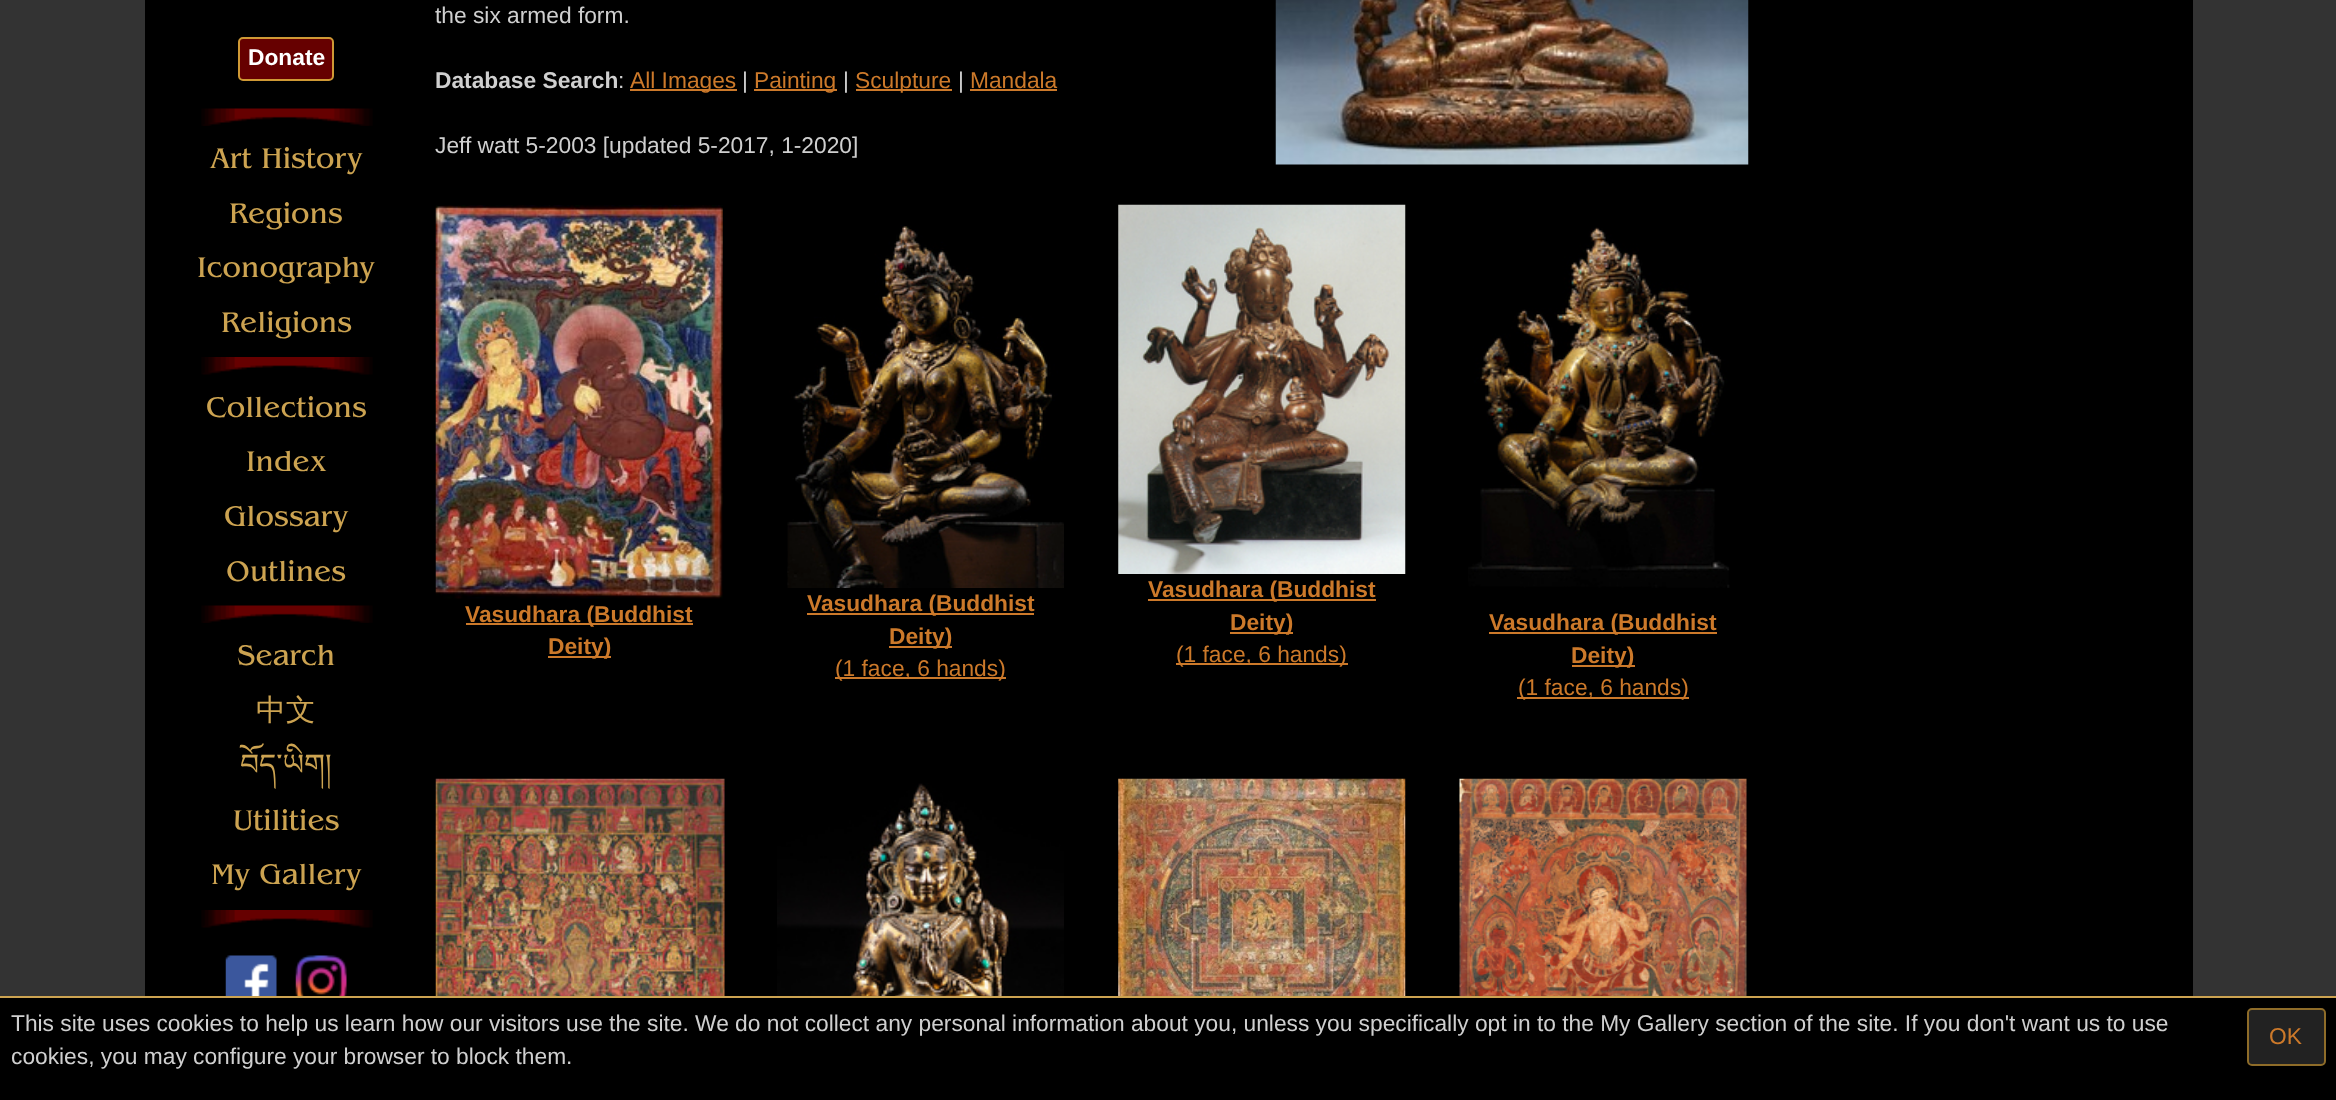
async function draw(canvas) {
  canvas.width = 2336
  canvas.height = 1100
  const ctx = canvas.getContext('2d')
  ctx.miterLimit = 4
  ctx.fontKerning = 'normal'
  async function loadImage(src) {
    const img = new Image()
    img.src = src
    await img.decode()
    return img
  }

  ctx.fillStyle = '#333'
  ctx.fillRect(0, 0, 2336, 1100)
  ctx.fillStyle = '#000'
  ctx.fillRect(145, 0, 2048, 996)
  ctx.fillStyle = '#600'
  ctx.beginPath()
  ctx.roundRect(239, 38, 94, 42, 4)
  ctx.fill()
  ctx.strokeStyle = '#cf9935'
  ctx.lineWidth = 2
  ctx.stroke()
  ctx.font = 'bold 22.75px Liberation Sans'
  ctx.fillStyle = '#fff'
  ctx.fillText('Donate', 248, 65)
  ctx.drawImage(await loadImage('image0.png'), 201, 108, 172, 18)
  ctx.font = '29.75px "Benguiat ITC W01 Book"'
  ctx.fillStyle = '#cca351'
  ctx.fillText('Art History', 210, 168)
  ctx.fillText('Regions', 229, 223)
  ctx.fillText('Iconography', 197, 277)
  ctx.fillText('Religions', 221, 332)
  ctx.drawImage(await loadImage('image1.png'), 201, 357, 172, 18)
  ctx.fillText('Collections', 206, 417)
  ctx.fillText('Index', 246, 471)
  ctx.fillText('Glossary', 224, 526)
  ctx.fillText('Outlines', 226, 581)
  ctx.drawImage(await loadImage('image0.png'), 201, 605, 172, 18)
  ctx.fillText('Search', 237, 665)
  ctx.font = '500 29.75px WenQuanYi Zen Hei'
  ctx.fillText('中文', 256, 720)
  ctx.font = '29.75px Noto Serif Tibetan'
  ctx.fillText('བོད་ཡིག།', 240, 775)
  ctx.font = '29.75px "Benguiat ITC W01 Book"'
  ctx.fillText('Utilities', 233, 830)
  ctx.fillText('My Gallery', 211, 884)
  ctx.drawImage(await loadImage('image1.png'), 201, 910, 172, 18)
  ctx.drawImage(await loadImage('image2.png'), 225, 955, 52, 41)
  ctx.drawImage(await loadImage('image3.png'), 295, 955, 52, 41)
  ctx.font = '22.75px Liberation Sans'
  ctx.fillStyle = '#cfcfcf'
  ctx.fillText('the six armed form.', 435, 23)
  ctx.drawImage(await loadImage('image4.png'), 1275, 0, 474, 165)
  ctx.font = 'bold 22.75px Liberation Sans'
  ctx.fillText('Database Search', 435, 88)
  ctx.font = '22.75px Liberation Sans'
  ctx.fillText(':', 618, 88)
  ctx.fillStyle = '#cc792a'
  ctx.fillRect(630, 89, 107, 2)
  ctx.fillText('All Images', 630, 88)
  ctx.fillStyle = '#cfcfcf'
  ctx.fillText('|', 742, 88)
  ctx.fillStyle = '#cc792a'
  ctx.fillRect(754, 89, 83, 2)
  ctx.fillText('Painting', 754, 88)
  ctx.fillStyle = '#cfcfcf'
  ctx.fillText('|', 843, 88)
  ctx.fillStyle = '#cc792a'
  ctx.fillRect(856, 89, 96, 2)
  ctx.fillText('Sculpture', 855, 88)
  ctx.fillStyle = '#cfcfcf'
  ctx.fillText('|', 958, 88)
  ctx.fillStyle = '#cc792a'
  ctx.fillText('Mandala', 970, 88)
  ctx.fillRect(970, 89, 87, 2)
  ctx.fillStyle = '#cfcfcf'
  ctx.fillText('Jeff watt 5-2003 [updated 5-2017, 1-2020]', 435, 153)
  ctx.drawImage(await loadImage('image5.png'), 435, 205, 288, 394)
  ctx.fillStyle = '#cc792a'
  ctx.fillRect(466, 623, 227, 2)
  ctx.font = 'bold 22.75px Liberation Sans'
  ctx.fillText('Vasudhara (Buddhist', 465, 622)
  ctx.fillRect(548, 656, 63, 2)
  ctx.fillText('Deity)', 548, 654)
  ctx.drawImage(await loadImage('image6.png'), 787, 225, 277, 363)
  ctx.fillRect(807, 613, 227, 2)
  ctx.fillText('Vasudhara (Buddhist', 807, 611)
  ctx.fillRect(889, 646, 63, 2)
  ctx.fillText('Deity)', 889, 644)
  ctx.fillRect(835, 677, 171, 2)
  ctx.font = '22.75px Liberation Sans'
  ctx.fillText('(1 face, 6 hands)', 835, 676)
  ctx.drawImage(await loadImage('image7.png'), 1118, 204, 288, 370)
  ctx.fillRect(1148, 599, 228, 2)
  ctx.font = 'bold 22.75px Liberation Sans'
  ctx.fillText('Vasudhara (Buddhist', 1148, 597)
  ctx.fillRect(1230, 632, 63, 2)
  ctx.fillText('Deity)', 1230, 630)
  ctx.fillRect(1176, 663, 172, 2)
  ctx.font = '22.75px Liberation Sans'
  ctx.fillText('(1 face, 6 hands)', 1176, 662)
  ctx.drawImage(await loadImage('image8.png'), 1468, 227, 262, 361)
  ctx.fillRect(1489, 632, 228, 2)
  ctx.font = 'bold 22.75px Liberation Sans'
  ctx.fillText('Vasudhara (Buddhist', 1489, 630)
  ctx.fillRect(1572, 665, 63, 2)
  ctx.fillText('Deity)', 1571, 663)
  ctx.fillRect(1517, 697, 172, 2)
  ctx.font = '22.75px Liberation Sans'
  ctx.fillText('(1 face, 6 hands)', 1518, 695)
  ctx.drawImage(await loadImage('image9.png'), 435, 778, 290, 218)
  ctx.drawImage(await loadImage('image10.png'), 777, 783, 287, 213)
  ctx.drawImage(await loadImage('image11.png'), 1118, 778, 288, 218)
  ctx.drawImage(await loadImage('image12.png'), 1459, 778, 288, 218)
  ctx.fillStyle = '#000'
  ctx.fillRect(0, 998, 2336, 102)
  ctx.fillStyle = '#cca351'
  ctx.fillRect(0, 996, 2336, 2)
  ctx.fillStyle = '#cfcfcf'
  ctx.fillText('This site uses cookies to help us learn how our visitors use the site. We do not collect any personal information about you, unless you specifically opt in to the My Gallery section of the site. If you don\'t want us to use', 11, 1031)
  ctx.fillText('cookies, you may configure your browser to block them.', 11, 1064)
  ctx.fillStyle = '#222'
  ctx.beginPath()
  ctx.roundRect(2248, 1009, 77, 56, 4)
  ctx.fill()
  ctx.strokeStyle = '#8e6c29'
  ctx.stroke()
  ctx.fillStyle = '#cc792a'
  ctx.fillText('OK', 2269, 1044)
}

draw(document.querySelector('canvas'))
